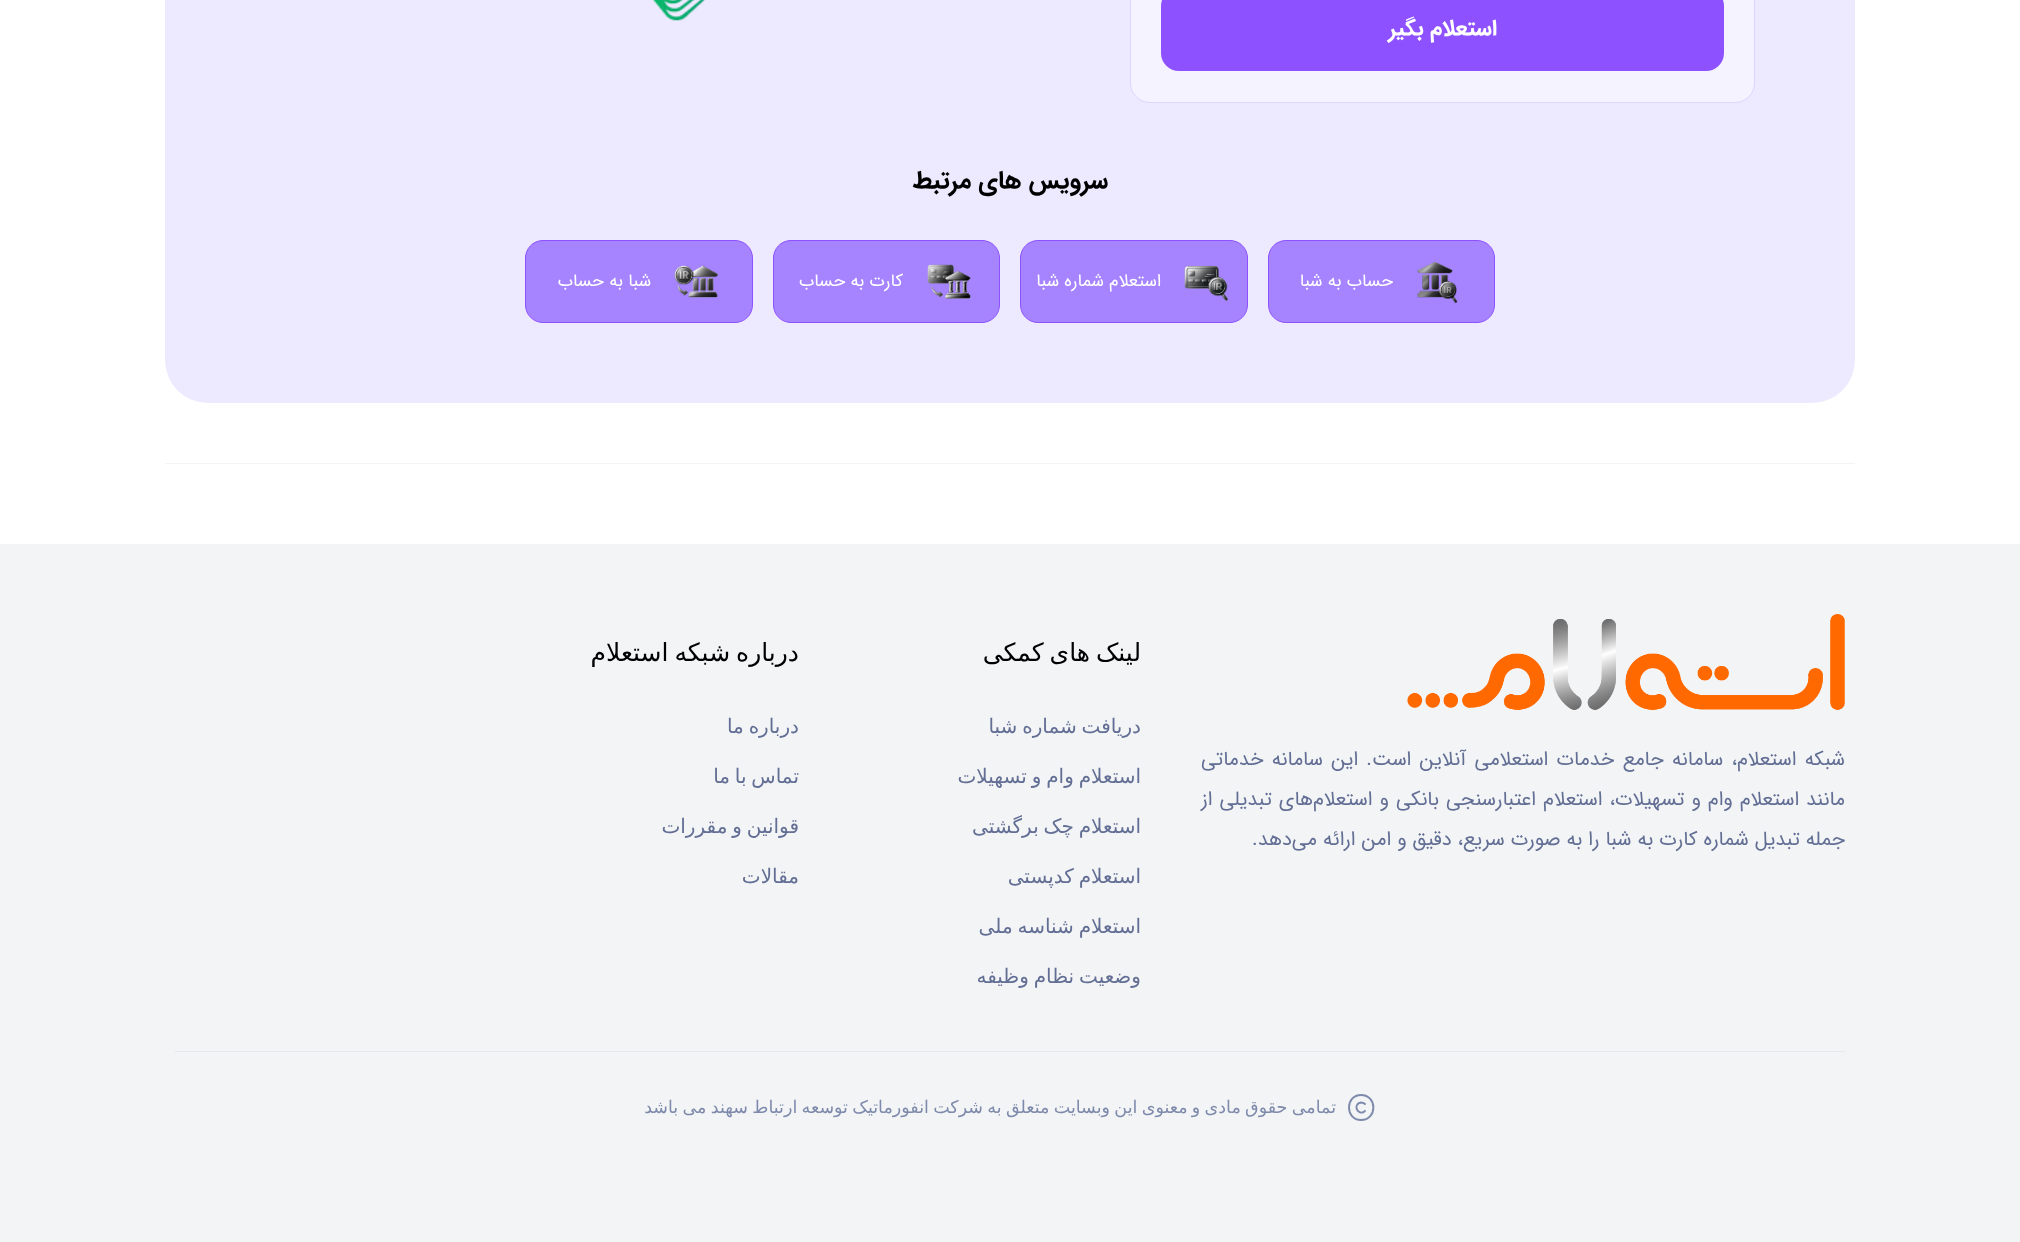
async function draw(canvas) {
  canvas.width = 2020
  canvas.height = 1242
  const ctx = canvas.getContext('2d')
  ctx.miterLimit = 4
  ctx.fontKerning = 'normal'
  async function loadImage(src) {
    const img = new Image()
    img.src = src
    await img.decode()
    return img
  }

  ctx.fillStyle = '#fff'
  ctx.fillRect(0, 0, 2020, 1242)
  ctx.fillStyle = '#ede9fe'
  ctx.beginPath()
  ctx.roundRect(165, -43, 1690, 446, 43)
  ctx.fill()
  ctx.drawImage(await loadImage('image0.png'), 653, 0, 53, 21)
  ctx.fillStyle = '#f5f3ff'
  ctx.beginPath()
  ctx.roundRect(1130.5, -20.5, 624, 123, 19.5)
  ctx.fill()
  ctx.strokeStyle = '#ddd6ff'
  ctx.stroke()
  ctx.fillStyle = '#8e51ff'
  ctx.beginPath()
  ctx.roundRect(1161, -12, 563, 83, 18)
  ctx.fill()
  ctx.direction = 'rtl'
  ctx.font = 'bold 22.5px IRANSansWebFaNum'
  ctx.fillStyle = '#fff'
  ctx.fillText('استعلام بگیر', 1497, 35)
  ctx.font = 'bold 25px IRANSansWebFaNum'
  ctx.fillStyle = '#000'
  ctx.fillText('سرویس های مرتبط', 1108, 188)
  ctx.fillStyle = '#a684ff'
  ctx.beginPath()
  ctx.roundRect(1268.5, 240.5, 226, 82, 17.5)
  ctx.fill()
  ctx.strokeStyle = '#8e51ff'
  ctx.stroke()
  ctx.drawImage(await loadImage('image1.png'), 1417, 261, 41, 43)
  ctx.font = '17.5px IRANSansWebFaNum'
  ctx.fillStyle = '#fff'
  ctx.fillText('حساب به شبا', 1393, 286)
  ctx.fillStyle = '#a684ff'
  ctx.beginPath()
  ctx.roundRect(1020.5, 240.5, 227, 82, 17.5)
  ctx.fill()
  ctx.stroke()
  ctx.drawImage(await loadImage('image2.png'), 1184, 265, 44, 36)
  ctx.fillStyle = '#fff'
  ctx.fillText('استعلام شماره شبا', 1161, 286)
  ctx.fillStyle = '#a684ff'
  ctx.beginPath()
  ctx.roundRect(773.5, 240.5, 226, 82, 17.5)
  ctx.fill()
  ctx.stroke()
  ctx.drawImage(await loadImage('image3.png'), 927, 264, 44, 35)
  ctx.fillStyle = '#fff'
  ctx.fillText('کارت به حساب', 903, 286)
  ctx.fillStyle = '#a684ff'
  ctx.beginPath()
  ctx.roundRect(525.5, 240.5, 227, 82, 17.5)
  ctx.fill()
  ctx.stroke()
  ctx.drawImage(await loadImage('image4.png'), 674, 265, 44, 33)
  ctx.fillStyle = '#fff'
  ctx.fillText('شبا به حساب', 651, 286)
  ctx.fillStyle = '#f3f4f6'
  ctx.fillRect(165, 463, 1690, 1)
  ctx.fillRect(0, 544, 2020, 698)
  ctx.drawImage(await loadImage('image5.png'), 1407, 614, 438, 97)
  ctx.wordSpacing = '2.25px'
  ctx.font = '20px IRANSansWebFaNum'
  ctx.fillStyle = '#626e94'
  ctx.fillText('شبکه استعلام، سامانه جامع خدمات استعلامی آنلاین است. این سامانه خدماتی', 1845, 765)
  ctx.wordSpacing = '1px'
  ctx.fillText('مانند استعلام وام و تسهیلات، استعلام اعتبارسنجی بانکی و استعلام‌های تبدیلی از', 1845, 805)
  ctx.wordSpacing = '0px'
  ctx.fillText('جمله تبدیل شماره کارت به شبا را به صورت سریع، دقیق و امن ارائه می‌دهد.', 1845, 845)
  ctx.wordSpacing = '-2px'
  ctx.font = '25px DejaVu Sans'
  ctx.fillStyle = '#000'
  ctx.fillText('لینک های کمکی', 1141, 661)
  ctx.wordSpacing = '-1.5px'
  ctx.font = '20px DejaVu Sans'
  ctx.fillStyle = '#626e94'
  ctx.fillText('دریافت شماره شبا', 1141, 733)
  ctx.fillText('استعلام وام و تسهیلات', 1141, 783)
  ctx.fillText('استعلام چک برگشتی', 1141, 833)
  ctx.fillText('استعلام کدپستی', 1141, 883)
  ctx.fillText('استعلام شناسه ملی', 1141, 933)
  ctx.fillText('وضعیت نظام وظیفه', 1141, 983)
  ctx.wordSpacing = '-2px'
  ctx.font = '25px DejaVu Sans'
  ctx.fillStyle = '#000'
  ctx.fillText('درباره شبکه استعلام', 799, 661)
  ctx.wordSpacing = '-1.5px'
  ctx.font = '20px DejaVu Sans'
  ctx.fillStyle = '#626e94'
  ctx.fillText('درباره ما', 799, 733)
  ctx.fillText('تماس با ما', 799, 783)
  ctx.fillText('قوانین و مقررات', 799, 833)
  ctx.wordSpacing = '0px'
  ctx.fillText('مقالات', 799, 883)
  ctx.fillStyle = '#e5e7eb'
  ctx.fillRect(175, 1051, 1670, 1)
  ctx.beginPath()
  ctx.moveTo(1361, 1120)
  ctx.bezierCurveTo(1345, 1120, 1345, 1095, 1361, 1095)
  ctx.bezierCurveTo(1377.5, 1095, 1377.5, 1120, 1361, 1120)
  ctx.closePath()
  ctx.moveTo(1365, 1111)
  ctx.bezierCurveTo(1358.5, 1117, 1352, 1104.5, 1360.5, 1102.5)
  ctx.bezierCurveTo(1362, 1102.5, 1363.5, 1102.5, 1365, 1104)
  ctx.strokeStyle = '#7e8aab'
  ctx.lineWidth = 1.9
  ctx.lineCap = 'round'
  ctx.lineJoin = 'round'
  ctx.stroke()
  ctx.wordSpacing = '-1.25px'
  ctx.font = '17.5px DejaVu Sans'
  ctx.fillStyle = '#7e8aab'
  ctx.fillText('تمامی حقوق مادی و معنوی این وبسایت متعلق به شرکت انفورماتیک توسعه ارتباط سهند می باشد', 1336, 1113)
}

draw(document.querySelector('canvas'))
